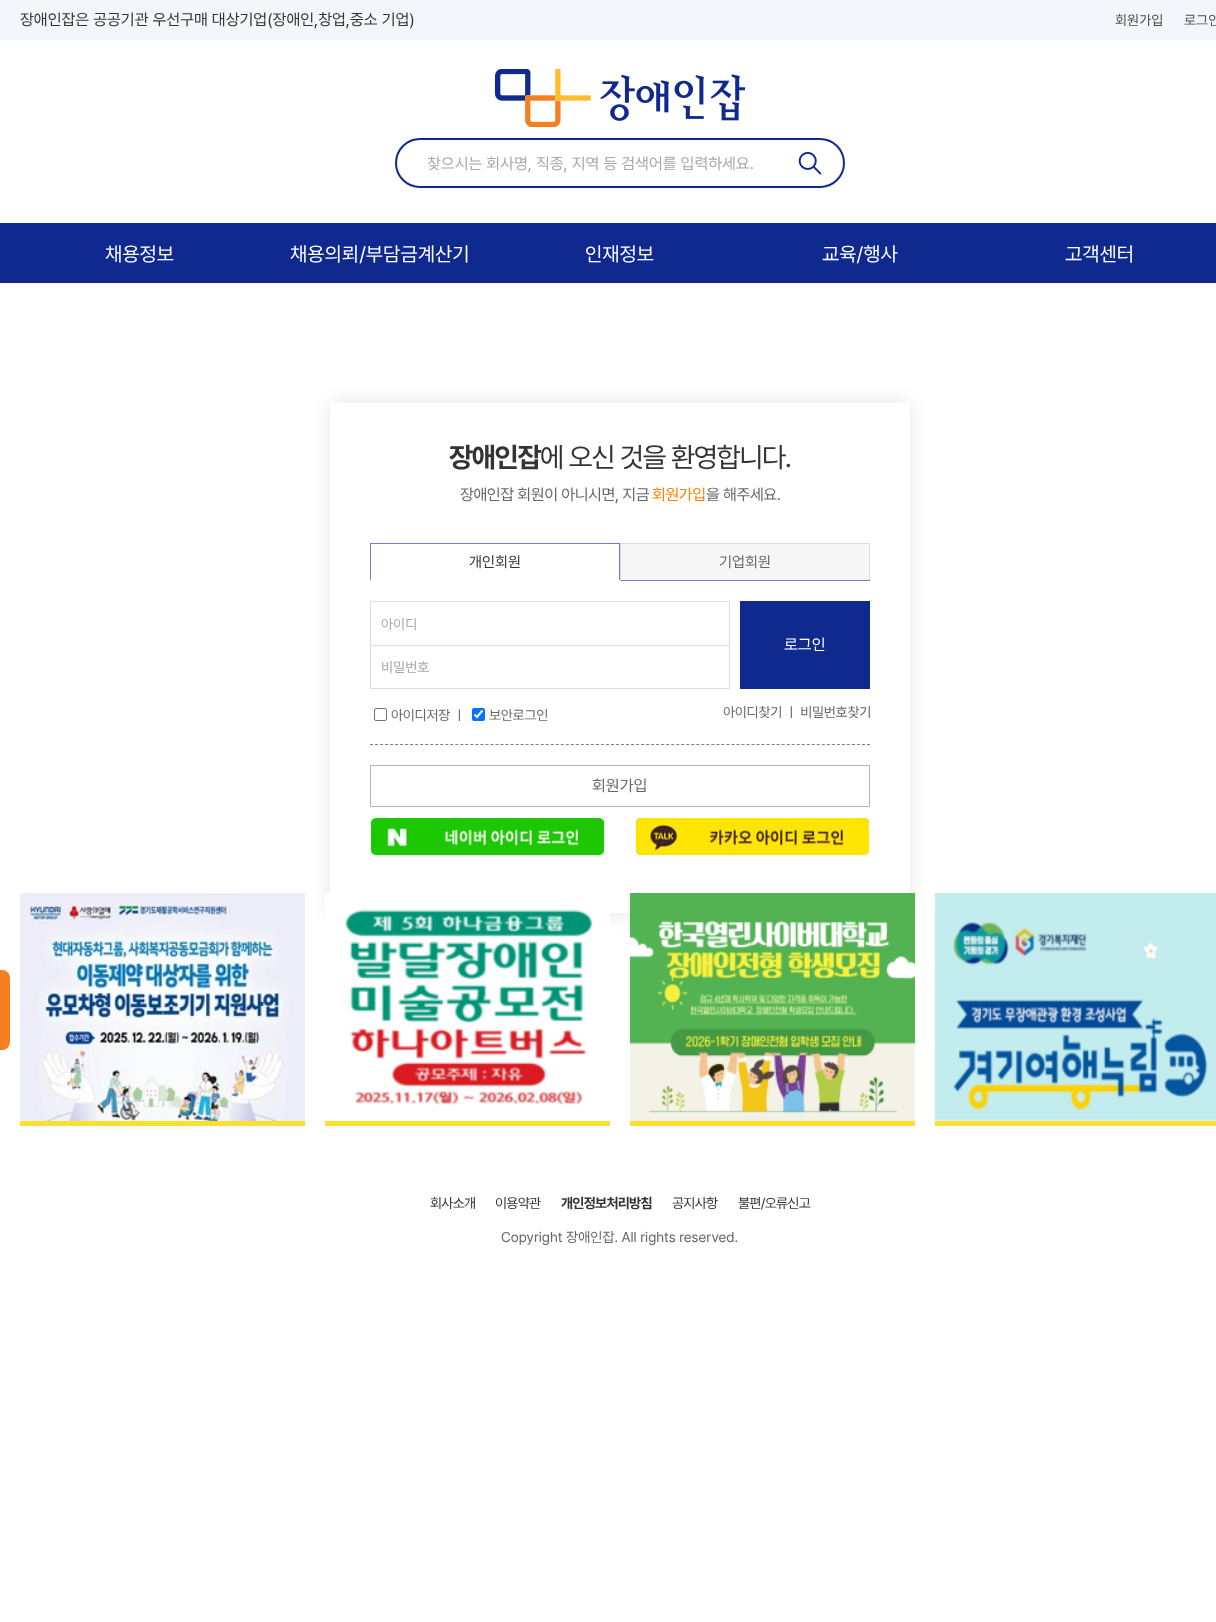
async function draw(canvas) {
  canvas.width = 1216
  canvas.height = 1622
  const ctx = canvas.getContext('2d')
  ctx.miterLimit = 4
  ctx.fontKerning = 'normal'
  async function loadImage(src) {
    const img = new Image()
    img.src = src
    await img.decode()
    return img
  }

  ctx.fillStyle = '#fff'
  ctx.fillRect(0, 0, 1216, 1622)
  ctx.fillStyle = '#f3f6fb'
  ctx.fillRect(0, 0, 1216, 40)
  ctx.font = '16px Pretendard'
  ctx.fillStyle = '#333'
  ctx.fillText('장애인잡은 공공기관 우선구매 대상기업(장애인,창업,중소 기업)', 20, 25)
  ctx.font = '14px Pretendard'
  ctx.fillStyle = '#4b4b4b'
  ctx.fillText('회원가입', 1115, 25)
  ctx.fillText('로그인', 1184, 25)
  ctx.drawImage(await loadImage('image0.png'), 495, 69, 250, 58)
  ctx.beginPath()
  ctx.roundRect(396, 139, 448, 48, 24)
  ctx.strokeStyle = '#0f298f'
  ctx.lineWidth = 2
  ctx.stroke()
  ctx.font = '16px Pretendard'
  ctx.fillStyle = '#a7a7a7'
  ctx.fillText('찾으시는 회사명, 직종, 지역 등 검색어를 입력하세요.', 427, 169)
  ctx.drawImage(await loadImage('image1.png'), 798, 152, 24, 23)
  ctx.fillStyle = '#0f298f'
  ctx.fillRect(0, 223, 1216, 60)
  ctx.font = '20px Pretendard'
  ctx.fillStyle = '#fff'
  ctx.fillText('채용정보', 105, 261)
  ctx.fillText('채용의뢰/부담금계산기', 290, 261)
  ctx.fillText('인재정보', 585, 261)
  ctx.fillText('교육/행사', 822, 261)
  ctx.fillText('고객센터', 1065, 261)
  ctx.save()
  ctx.beginPath()
  ctx.moveTo(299, 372)
  ctx.lineTo(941, 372)
  ctx.lineTo(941, 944)
  ctx.lineTo(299, 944)
  ctx.closePath()
  ctx.moveTo(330, 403)
  ctx.lineTo(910, 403)
  ctx.lineTo(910, 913)
  ctx.lineTo(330, 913)
  ctx.closePath()
  ctx.clip('evenodd')
  ctx.fillStyle = '#0000001a'
  ctx.filter = 'blur(10px)'
  ctx.beginPath()
  ctx.rect(330, 403, 580, 510)
  ctx.fill()
  ctx.filter = 'none'
  ctx.restore()
  ctx.letterSpacing = '-1.4px'
  ctx.font = 'bold 28px Pretendard'
  ctx.fillStyle = '#333'
  ctx.fillText('장애인잡', 449, 467)
  ctx.font = '28px Pretendard'
  ctx.fillText('에 오신 것을 환영합니다.', 540, 467)
  ctx.letterSpacing = '-0.4px'
  ctx.font = '16px Pretendard'
  ctx.fillStyle = '#666'
  ctx.fillText('장애인잡 회원이 아니시면, 지금', 460, 500)
  ctx.fillStyle = '#ff7f00'
  ctx.fillText('회원가입', 652, 500)
  ctx.fillStyle = '#666'
  ctx.fillText('을 해주세요.', 706, 500)
  ctx.fillStyle = '#6f7fbc'
  ctx.fillRect(370, 543, 250, 1)
  ctx.fillRect(619, 543, 1, 37)
  ctx.fillRect(370, 543, 1, 37)
  ctx.letterSpacing = '0px'
  ctx.font = '15px Pretendard'
  ctx.fillStyle = '#333'
  ctx.fillText('개인회원', 469, 567)
  ctx.fillStyle = '#f7f7f7'
  ctx.fillRect(621, 544, 248, 36)
  ctx.fillStyle = '#ddd'
  ctx.fillRect(620, 543, 250, 1)
  ctx.fillRect(869, 543, 1, 38)
  ctx.fillStyle = '#6f7fbc'
  ctx.fillRect(620, 580, 250, 1)
  ctx.fillStyle = '#ddd'
  ctx.fillRect(620, 543, 1, 38)
  ctx.fillStyle = '#666'
  ctx.fillText('기업회원', 719, 567)
  ctx.beginPath()
  ctx.moveTo(370, 744.5)
  ctx.lineTo(870, 744.5)
  ctx.strokeStyle = '#6f7fbc'
  ctx.lineWidth = 1
  ctx.setLineDash([3, 2.02])
  ctx.stroke()
  ctx.fillStyle = '#ddd'
  ctx.fillRect(370, 601, 360, 1)
  ctx.fillRect(729, 601, 1, 44)
  ctx.fillRect(370, 601, 1, 44)
  ctx.font = '14px Pretendard'
  ctx.fillStyle = '#a7a7a7'
  ctx.fillText('아이디', 381, 629)
  ctx.strokeStyle = '#ddd'
  ctx.setLineDash([])
  ctx.strokeRect(370.5, 645.5, 359, 43)
  ctx.fillText('비밀번호', 381, 672)
  ctx.fillStyle = '#0f298f'
  ctx.fillRect(740, 601, 130, 88)
  ctx.font = '16px Pretendard'
  ctx.fillStyle = '#fff'
  ctx.fillText('로그인', 784, 650)
  ctx.beginPath()
  ctx.roundRect(374.5, 708.5, 12, 12, 1.5)
  ctx.strokeStyle = '#767676'
  ctx.stroke()
  ctx.letterSpacing = '-0.3px'
  ctx.font = '14px Pretendard'
  ctx.fillStyle = '#666'
  ctx.fillText('아이디저장 ㅣ', 391, 720)
  ctx.fillStyle = '#0075ff'
  ctx.beginPath()
  ctx.roundRect(472, 708, 13, 13, 2)
  ctx.fill()
  ctx.beginPath()
  ctx.moveTo(474.5, 714.5)
  ctx.lineTo(477, 717)
  ctx.lineTo(482.5, 710.5)
  ctx.strokeStyle = '#fff'
  ctx.lineWidth = 2.1
  ctx.stroke()
  ctx.fillStyle = '#666'
  ctx.fillText('보안로그인', 489, 720)
  ctx.fillText('아이디찾기 ㅣ 비밀번호찾기', 723, 717)
  ctx.strokeStyle = '#b4b4b4'
  ctx.lineWidth = 1
  ctx.strokeRect(370.5, 765.5, 499, 41)
  ctx.letterSpacing = '0px'
  ctx.font = '16px Pretendard'
  ctx.fillText('회원가입', 592, 791)
  ctx.drawImage(await loadImage('image2.png'), 370, 817, 235, 39)
  ctx.drawImage(await loadImage('image3.png'), 635, 817, 235, 39)
  ctx.fillStyle = '#f57e1f'
  ctx.beginPath()
  ctx.roundRect(0, 970, 10, 80, [0, 8, 8, 0])
  ctx.fill()
  ctx.fillStyle = '#fedf2d'
  ctx.fillRect(20, 1121, 285, 5)
  ctx.drawImage(await loadImage('image4.png'), 20, 893, 285, 228)
  ctx.fillRect(325, 1121, 285, 5)
  ctx.drawImage(await loadImage('image5.png'), 325, 893, 285, 228)
  ctx.fillRect(630, 1121, 285, 5)
  ctx.drawImage(await loadImage('image6.png'), 630, 893, 285, 228)
  ctx.fillRect(935, 1121, 281, 5)
  ctx.drawImage(await loadImage('image7.png'), 935, 893, 281, 228)
  ctx.letterSpacing = '-0.75px'
  ctx.font = '14px Pretendard'
  ctx.fillStyle = '#333'
  ctx.fillText('회사소개', 430, 1208)
  ctx.fillText('이용약관', 495, 1208)
  ctx.font = 'bold 14px Pretendard'
  ctx.fillText('개인정보처리방침', 561, 1208)
  ctx.font = '14px Pretendard'
  ctx.fillText('공지사항', 672, 1208)
  ctx.fillText('불편/오류신고', 738, 1208)
  ctx.letterSpacing = '0px'
  ctx.fillStyle = '#666'
  ctx.fillText('Copyright 장애인잡. All rights reserved.', 501, 1242)
}

draw(document.querySelector('canvas'))
